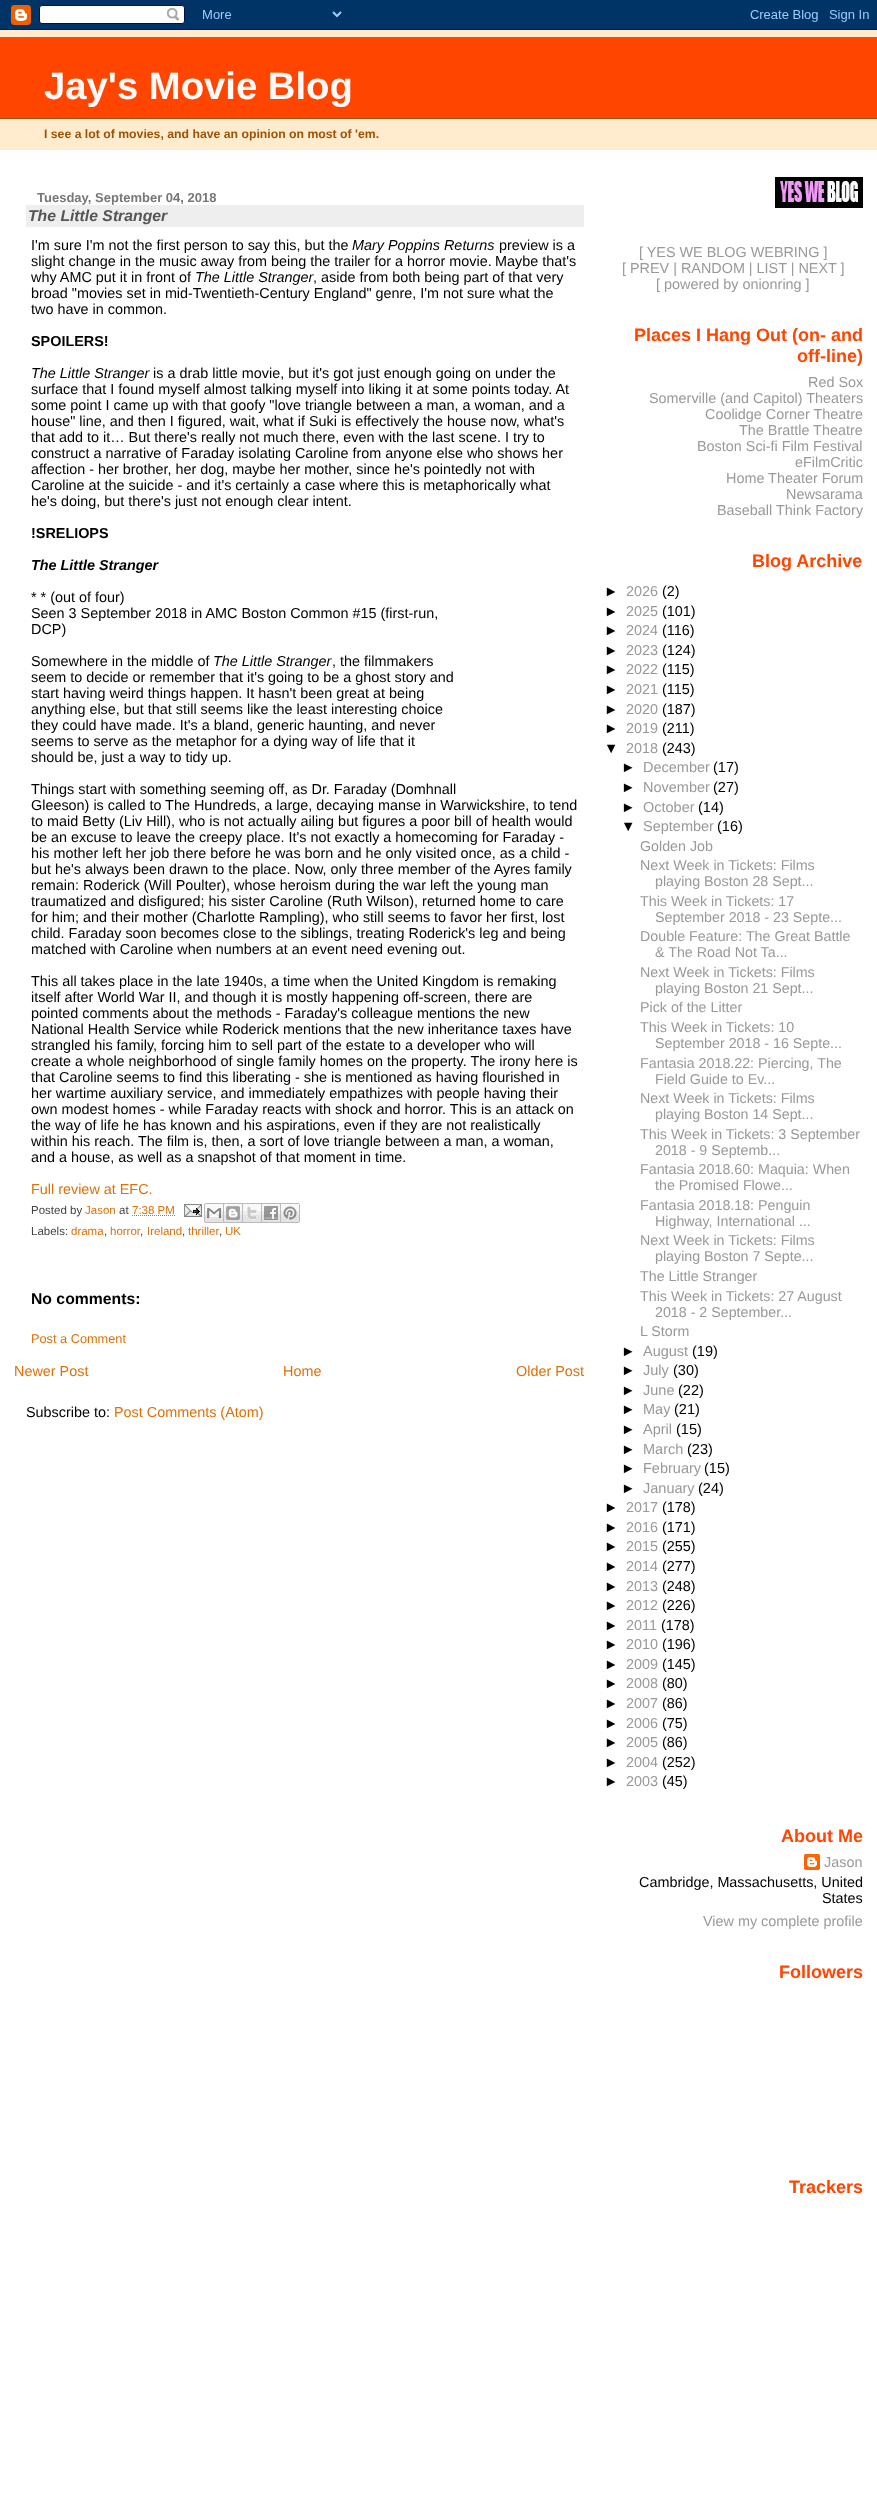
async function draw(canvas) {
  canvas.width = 877
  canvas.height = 2501
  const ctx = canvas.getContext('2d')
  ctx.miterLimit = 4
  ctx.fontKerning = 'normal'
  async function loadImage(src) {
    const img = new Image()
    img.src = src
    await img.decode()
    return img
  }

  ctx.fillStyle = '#fff'
  ctx.fillRect(0, 0, 877, 2501)
  ctx.drawImage(await loadImage('image0.png'), 0, 0, 877, 30)
  ctx.fillStyle = '#ffebcd'
  ctx.fillRect(0, 30, 877, 119)
  ctx.fillStyle = '#eee'
  ctx.fillRect(0, 149, 877, 1)
  ctx.fillStyle = '#ff4500'
  ctx.fillRect(0, 37, 877, 81)
  ctx.fillStyle = '#9e5205'
  ctx.fillRect(0, 118, 877, 1)
  ctx.font = 'bold 38.25px Liberation Sans'
  ctx.fillStyle = '#fffafa'
  ctx.fillText('Jay\'s Movie Blog', 44, 99)
  ctx.font = 'bold 12.25px Liberation Sans'
  ctx.fillStyle = '#9e5205'
  ctx.fillText('I see a lot of movies, and have an opinion on most of \'em.', 44, 138)
  ctx.font = 'bold 13px Liberation Sans'
  ctx.fillStyle = '#777'
  ctx.fillText('Tuesday, September 04, 2018', 37, 202)
  ctx.fillStyle = '#eee'
  ctx.fillRect(26, 205, 558, 22)
  ctx.font = 'italic bold 15.75px Liberation Sans'
  ctx.fillStyle = '#555'
  ctx.fillText('The Little Stranger', 28, 221)
  ctx.font = '14.4px Liberation Sans'
  ctx.fillStyle = '#000'
  ctx.fillText('I\'m sure I\'m not the first person to say this, but the', 31, 250)
  ctx.font = 'italic 14.4px Liberation Sans'
  ctx.fillText('Mary Poppins Returns', 352, 250)
  ctx.font = '14.4px Liberation Sans'
  ctx.fillText('preview is a', 499, 250)
  ctx.fillText('slight change in the music away from being the trailer for a horror movie.', 31, 266)
  ctx.fillText('Maybe that\'s', 495, 266)
  ctx.fillText('why AMC put it in front of', 31, 282)
  ctx.font = 'italic 14.4px Liberation Sans'
  ctx.fillText('The Little Stranger', 195, 282)
  ctx.font = '14.4px Liberation Sans'
  ctx.fillText(', aside from both being part of that very', 313, 282)
  ctx.fillText('broad "movies set in mid-Twentieth-Century England" genre, I\'m not sure what the', 31, 298)
  ctx.fillText('two have in common.', 31, 314)
  ctx.font = 'bold 14.4px Liberation Sans'
  ctx.fillText('SPOILERS!', 31, 346)
  ctx.font = 'italic 14.4px Liberation Sans'
  ctx.fillText('The Little Stranger', 31, 378)
  ctx.font = '14.4px Liberation Sans'
  ctx.fillText('is a drab little movie, but it\'s got just enough going on under the', 153, 378)
  ctx.fillText('surface that I found myself almost talking myself into liking it at some points today. At', 31, 394)
  ctx.fillText('some point I came up with that goofy "love triangle between a man, a woman, and a', 31, 410)
  ctx.fillText('house" line, and then I figured, wait, what if Suki is effectively the house now, what\'s', 31, 426)
  ctx.fillText('that add to it… But there\'s really not much there, even with the last scene. I try to', 31, 442)
  ctx.fillText('construct a narrative of Faraday isolating Caroline from anyone else who shows her', 31, 458)
  ctx.fillText('affection - her brother, her dog, maybe her mother, since he\'s pointedly not with', 31, 474)
  ctx.fillText('Caroline at the suicide - and it\'s certainly a case where this is metaphorically what', 31, 490)
  ctx.fillText('he\'s doing, but there\'s just not enough clear intent.', 31, 506)
  ctx.font = 'bold 14.4px Liberation Sans'
  ctx.fillText('!SRELIOPS', 31, 538)
  ctx.font = 'italic bold 14.4px Liberation Sans'
  ctx.fillText('The Little Stranger', 31, 570)
  ctx.font = '14.4px Liberation Sans'
  ctx.fillText('* * (out of four)', 31, 602)
  ctx.fillText('Seen 3 September 2018 in AMC Boston Common #15 (first-run,', 31, 618)
  ctx.fillText('DCP)', 31, 634)
  ctx.fillText('Somewhere in the middle of', 31, 666)
  ctx.font = 'italic 14.4px Liberation Sans'
  ctx.fillText('The Little Stranger', 213, 666)
  ctx.font = '14.4px Liberation Sans'
  ctx.fillText(', the filmmakers', 332, 666)
  ctx.fillText('seem to decide or remember that it\'s going to be a ghost story and', 31, 682)
  ctx.fillText('start having weird things happen. It hasn\'t been great at being', 31, 698)
  ctx.fillText('anything else, but that still seems like the least interesting choice', 31, 714)
  ctx.fillText('they could have made. It\'s a bland, generic haunting, and never', 31, 730)
  ctx.fillText('seems to serve as the metaphor for a dying way of life that it', 31, 746)
  ctx.fillText('should be, just a way to tidy up.', 31, 762)
  ctx.fillText('Things start with something seeming off, as Dr. Faraday (Domhnall', 31, 794)
  ctx.fillText('Gleeson) is called to The Hundreds, a large, decaying manse in Warwickshire, to tend', 31, 810)
  ctx.fillText('to maid Betty (Liv Hill), who is not actually ailing but figures a poor bill of health would', 31, 826)
  ctx.fillText('be an excuse to leave the creepy place. It\'s not exactly a homecoming for Faraday -', 31, 842)
  ctx.fillText('his mother left her job there before he was born and he only visited once, as a child -', 31, 858)
  ctx.fillText('but he\'s always been drawn to the place. Now, only three member of the Ayres family', 31, 874)
  ctx.fillText('remain: Roderick (Will Poulter), whose heroism during the war left the young man', 31, 890)
  ctx.fillText('traumatized and disfigured; his sister Caroline (Ruth Wilson), returned home to care', 31, 906)
  ctx.fillText('for him; and their mother (Charlotte Rampling), who still seems to favor her first, lost', 31, 922)
  ctx.fillText('child. Faraday soon becomes close to the siblings, treating Roderick\'s leg and being', 31, 938)
  ctx.fillText('matched with Caroline when numbers at an event need evening out.', 31, 954)
  ctx.fillText('This all takes place in the late 1940s, a time when the United Kingdom is remaking', 31, 986)
  ctx.fillText('itself after World War II, and though it is mostly happening off-screen, there are', 31, 1002)
  ctx.fillText('pointed comments about the methods - Faraday\'s colleague mentions the new', 31, 1018)
  ctx.fillText('National Health Service while Roderick mentions that the new inheritance taxes have', 31, 1034)
  ctx.fillText('strangled his family, forcing him to sell part of the estate to a developer who will', 31, 1050)
  ctx.fillText('create a whole neighborhood of single family homes on the property. The irony here is', 31, 1066)
  ctx.fillText('that Caroline seems to find this liberating - she is mentioned as having flourished in', 31, 1082)
  ctx.fillText('her wartime auxiliary service, and immediately empathizes with people having their', 31, 1098)
  ctx.fillText('own modest homes - while Faraday reacts with shock and horror. This is an attack on', 31, 1114)
  ctx.fillText('the way of life he has known and his aspirations, even if they are not realistically', 31, 1130)
  ctx.fillText('within his reach. The film is, then, a sort of love triangle between a man, a woman,', 31, 1146)
  ctx.fillText('and a house, as well as a snapshot of that moment in time.', 31, 1162)
  ctx.fillStyle = '#de7008'
  ctx.fillText('Full review at EFC.', 31, 1194)
  ctx.font = '11.5px Liberation Sans'
  ctx.fillStyle = '#444'
  ctx.fillText('Posted by', 31, 1214)
  ctx.fillStyle = '#de7008'
  ctx.fillText('Jason', 85, 1214)
  ctx.fillStyle = '#444'
  ctx.fillText('at', 119, 1214)
  ctx.fillStyle = '#de7008'
  ctx.fillText('7:38 PM', 132, 1214)
  ctx.beginPath()
  ctx.moveTo(132, 1215.5)
  ctx.lineTo(175, 1215.5)
  ctx.strokeStyle = '#de7008'
  ctx.setLineDash([1, 1])
  ctx.stroke()
  ctx.drawImage(await loadImage('image1.png'), 184, 1204, 18, 13)
  ctx.drawImage(await loadImage('image2.png'), 204, 1203, 20, 20)
  ctx.drawImage(await loadImage('image3.png'), 224, 1203, 19, 20)
  ctx.drawImage(await loadImage('image4.png'), 243, 1203, 19, 20)
  ctx.drawImage(await loadImage('image5.png'), 262, 1203, 19, 20)
  ctx.drawImage(await loadImage('image6.png'), 281, 1203, 19, 20)
  ctx.fillStyle = '#444'
  ctx.fillText('Labels:', 31, 1235)
  ctx.fillStyle = '#de7008'
  ctx.fillText('drama', 71, 1235)
  ctx.fillStyle = '#444'
  ctx.fillText(',', 104, 1235)
  ctx.fillStyle = '#de7008'
  ctx.fillText('horror', 110, 1235)
  ctx.fillStyle = '#444'
  ctx.fillText(',', 140, 1235)
  ctx.fillStyle = '#de7008'
  ctx.fillText('Ireland', 147, 1235)
  ctx.fillStyle = '#444'
  ctx.fillText(',', 182, 1235)
  ctx.fillStyle = '#de7008'
  ctx.fillText('thriller', 188, 1235)
  ctx.fillStyle = '#444'
  ctx.fillText(',', 219, 1235)
  ctx.fillStyle = '#de7008'
  ctx.fillText('UK', 225, 1235)
  ctx.font = 'bold 15.75px Liberation Sans'
  ctx.fillStyle = '#000'
  ctx.fillText('No comments:', 31, 1304)
  ctx.font = '12.75px Liberation Sans'
  ctx.fillStyle = '#de7008'
  ctx.fillText('Post a Comment', 31, 1343)
  ctx.font = '14.4px Liberation Sans'
  ctx.fillText('Newer Post', 14, 1376)
  ctx.fillText('Home', 283, 1376)
  ctx.fillText('Older Post', 516, 1376)
  ctx.fillStyle = '#000'
  ctx.fillText('Subscribe to:', 26, 1417)
  ctx.fillStyle = '#de7008'
  ctx.fillText('Post Comments (Atom)', 114, 1417)
  ctx.drawImage(await loadImage('image7.png'), 775, 177, 88, 31)
  ctx.fillStyle = '#999'
  ctx.fillText('[ YES WE BLOG WEBRING ]', 639, 257)
  ctx.fillText('[ PREV | RANDOM | LIST | NEXT ]', 622, 273)
  ctx.fillText('[ powered by onionring ]', 656, 289)
  ctx.font = 'bold 18px Liberation Sans'
  ctx.fillStyle = '#ff4500'
  ctx.fillText('Places I Hang Out (on- and', 634, 341)
  ctx.fillText('off-line)', 797, 362)
  ctx.font = '14.4px Liberation Sans'
  ctx.fillStyle = '#999'
  ctx.fillText('Red Sox', 808, 387)
  ctx.fillText('Somerville (and Capitol) Theaters', 649, 403)
  ctx.fillText('Coolidge Corner Theatre', 705, 419)
  ctx.fillText('The Brattle Theatre', 739, 435)
  ctx.fillText('Boston Sci-fi Film Festival', 697, 451)
  ctx.fillText('eFilmCritic', 795, 467)
  ctx.fillText('Home Theater Forum', 726, 483)
  ctx.fillText('Newsarama', 786, 499)
  ctx.fillText('Baseball Think Factory', 717, 515)
  ctx.font = 'bold 18px Liberation Sans'
  ctx.fillStyle = '#ff4500'
  ctx.fillText('Blog Archive', 752, 567)
  ctx.font = '14.4px Liberation Sans'
  ctx.fillStyle = '#000'
  ctx.fillText('►', 604, 596)
  ctx.fillStyle = '#999'
  ctx.fillText('2026', 626, 596)
  ctx.fillStyle = '#000'
  ctx.fillText('(2)', 662, 596)
  ctx.fillText('►', 604, 616)
  ctx.fillStyle = '#999'
  ctx.fillText('2025', 626, 616)
  ctx.fillStyle = '#000'
  ctx.fillText('(101)', 662, 616)
  ctx.fillText('►', 604, 635)
  ctx.fillStyle = '#999'
  ctx.fillText('2024', 626, 635)
  ctx.fillStyle = '#000'
  ctx.fillText('(116)', 662, 635)
  ctx.fillText('►', 604, 655)
  ctx.fillStyle = '#999'
  ctx.fillText('2023', 626, 655)
  ctx.fillStyle = '#000'
  ctx.fillText('(124)', 662, 655)
  ctx.fillText('►', 604, 674)
  ctx.fillStyle = '#999'
  ctx.fillText('2022', 626, 674)
  ctx.fillStyle = '#000'
  ctx.fillText('(115)', 662, 674)
  ctx.fillText('►', 604, 694)
  ctx.fillStyle = '#999'
  ctx.fillText('2021', 626, 694)
  ctx.fillStyle = '#000'
  ctx.fillText('(115)', 662, 694)
  ctx.fillText('►', 604, 714)
  ctx.fillStyle = '#999'
  ctx.fillText('2020', 626, 714)
  ctx.fillStyle = '#000'
  ctx.fillText('(187)', 662, 714)
  ctx.fillText('►', 604, 733)
  ctx.fillStyle = '#999'
  ctx.fillText('2019', 626, 733)
  ctx.fillStyle = '#000'
  ctx.fillText('(211)', 662, 733)
  ctx.fillText('▼', 604, 753)
  ctx.fillStyle = '#999'
  ctx.fillText('2018', 626, 753)
  ctx.fillStyle = '#000'
  ctx.fillText('(243)', 662, 753)
  ctx.font = '14.5px Liberation Sans'
  ctx.fillText('►', 621, 772)
  ctx.fillStyle = '#999'
  ctx.fillText('December', 643, 772)
  ctx.fillStyle = '#000'
  ctx.fillText('(17)', 713, 772)
  ctx.fillText('►', 621, 792)
  ctx.fillStyle = '#999'
  ctx.fillText('November', 643, 792)
  ctx.fillStyle = '#000'
  ctx.fillText('(27)', 713, 792)
  ctx.fillText('►', 621, 812)
  ctx.fillStyle = '#999'
  ctx.fillText('October', 643, 812)
  ctx.fillStyle = '#000'
  ctx.fillText('(14)', 698, 812)
  ctx.fillText('▼', 621, 831)
  ctx.fillStyle = '#999'
  ctx.fillText('September', 643, 831)
  ctx.fillStyle = '#000'
  ctx.fillText('(16)', 717, 831)
  ctx.font = '14.25px Liberation Sans'
  ctx.fillStyle = '#999'
  ctx.fillText('Golden Job', 640, 851)
  ctx.fillText('Next Week in Tickets: Films', 640, 870)
  ctx.fillText('playing Boston 28 Sept...', 655, 886)
  ctx.fillText('This Week in Tickets: 17', 640, 906)
  ctx.fillText('September 2018 - 23 Septe...', 655, 922)
  ctx.fillText('Double Feature: The Great Battle', 640, 941)
  ctx.fillText('& The Road Not Ta...', 655, 957)
  ctx.fillText('Next Week in Tickets: Films', 640, 977)
  ctx.fillText('playing Boston 21 Sept...', 655, 993)
  ctx.fillText('Pick of the Litter', 640, 1012)
  ctx.fillText('This Week in Tickets: 10', 640, 1032)
  ctx.fillText('September 2018 - 16 Septe...', 655, 1048)
  ctx.fillText('Fantasia 2018.22: Piercing, The', 640, 1068)
  ctx.fillText('Field Guide to Ev...', 655, 1084)
  ctx.fillText('Next Week in Tickets: Films', 640, 1103)
  ctx.fillText('playing Boston 14 Sept...', 655, 1119)
  ctx.fillText('This Week in Tickets: 3 September', 640, 1139)
  ctx.fillText('2018 - 9 Septemb...', 655, 1155)
  ctx.fillText('Fantasia 2018.60: Maquia: When', 640, 1174)
  ctx.fillText('the Promised Flowe...', 655, 1190)
  ctx.fillText('Fantasia 2018.18: Penguin', 640, 1210)
  ctx.fillText('Highway, International ...', 655, 1226)
  ctx.fillText('Next Week in Tickets: Films', 640, 1245)
  ctx.fillText('playing Boston 7 Septe...', 655, 1261)
  ctx.fillText('The Little Stranger', 640, 1281)
  ctx.fillText('This Week in Tickets: 27 August', 640, 1301)
  ctx.fillText('2018 - 2 September...', 655, 1317)
  ctx.fillText('L Storm', 640, 1336)
  ctx.font = '14.5px Liberation Sans'
  ctx.fillStyle = '#000'
  ctx.fillText('►', 621, 1356)
  ctx.fillStyle = '#999'
  ctx.fillText('August', 643, 1356)
  ctx.fillStyle = '#000'
  ctx.fillText('(19)', 692, 1356)
  ctx.fillText('►', 621, 1375)
  ctx.fillStyle = '#999'
  ctx.fillText('July', 643, 1375)
  ctx.fillStyle = '#000'
  ctx.fillText('(30)', 673, 1375)
  ctx.fillText('►', 621, 1395)
  ctx.fillStyle = '#999'
  ctx.fillText('June', 643, 1395)
  ctx.fillStyle = '#000'
  ctx.fillText('(22)', 678, 1395)
  ctx.fillText('►', 621, 1414)
  ctx.fillStyle = '#999'
  ctx.fillText('May', 643, 1414)
  ctx.fillStyle = '#000'
  ctx.fillText('(21)', 674, 1414)
  ctx.fillText('►', 621, 1434)
  ctx.fillStyle = '#999'
  ctx.fillText('April', 643, 1434)
  ctx.fillStyle = '#000'
  ctx.fillText('(15)', 676, 1434)
  ctx.fillText('►', 621, 1454)
  ctx.fillStyle = '#999'
  ctx.fillText('March', 643, 1454)
  ctx.fillStyle = '#000'
  ctx.fillText('(23)', 687, 1454)
  ctx.fillText('►', 621, 1473)
  ctx.fillStyle = '#999'
  ctx.fillText('February', 643, 1473)
  ctx.fillStyle = '#000'
  ctx.fillText('(15)', 704, 1473)
  ctx.fillText('►', 621, 1493)
  ctx.fillStyle = '#999'
  ctx.fillText('January', 643, 1493)
  ctx.fillStyle = '#000'
  ctx.fillText('(24)', 698, 1493)
  ctx.font = '14.4px Liberation Sans'
  ctx.fillText('►', 604, 1512)
  ctx.fillStyle = '#999'
  ctx.fillText('2017', 626, 1512)
  ctx.fillStyle = '#000'
  ctx.fillText('(178)', 662, 1512)
  ctx.fillText('►', 604, 1532)
  ctx.fillStyle = '#999'
  ctx.fillText('2016', 626, 1532)
  ctx.fillStyle = '#000'
  ctx.fillText('(171)', 662, 1532)
  ctx.fillText('►', 604, 1551)
  ctx.fillStyle = '#999'
  ctx.fillText('2015', 626, 1551)
  ctx.fillStyle = '#000'
  ctx.fillText('(255)', 662, 1551)
  ctx.fillText('►', 604, 1571)
  ctx.fillStyle = '#999'
  ctx.fillText('2014', 626, 1571)
  ctx.fillStyle = '#000'
  ctx.fillText('(277)', 662, 1571)
  ctx.fillText('►', 604, 1591)
  ctx.fillStyle = '#999'
  ctx.fillText('2013', 626, 1591)
  ctx.fillStyle = '#000'
  ctx.fillText('(248)', 662, 1591)
  ctx.fillText('►', 604, 1610)
  ctx.fillStyle = '#999'
  ctx.fillText('2012', 626, 1610)
  ctx.fillStyle = '#000'
  ctx.fillText('(226)', 662, 1610)
  ctx.fillText('►', 604, 1630)
  ctx.fillStyle = '#999'
  ctx.fillText('2011', 626, 1630)
  ctx.fillStyle = '#000'
  ctx.fillText('(178)', 661, 1630)
  ctx.fillText('►', 604, 1649)
  ctx.fillStyle = '#999'
  ctx.fillText('2010', 626, 1649)
  ctx.fillStyle = '#000'
  ctx.fillText('(196)', 662, 1649)
  ctx.fillText('►', 604, 1669)
  ctx.fillStyle = '#999'
  ctx.fillText('2009', 626, 1669)
  ctx.fillStyle = '#000'
  ctx.fillText('(145)', 662, 1669)
  ctx.fillText('►', 604, 1688)
  ctx.fillStyle = '#999'
  ctx.fillText('2008', 626, 1688)
  ctx.fillStyle = '#000'
  ctx.fillText('(80)', 662, 1688)
  ctx.fillText('►', 604, 1708)
  ctx.fillStyle = '#999'
  ctx.fillText('2007', 626, 1708)
  ctx.fillStyle = '#000'
  ctx.fillText('(86)', 662, 1708)
  ctx.fillText('►', 604, 1728)
  ctx.fillStyle = '#999'
  ctx.fillText('2006', 626, 1728)
  ctx.fillStyle = '#000'
  ctx.fillText('(75)', 662, 1728)
  ctx.fillText('►', 604, 1747)
  ctx.fillStyle = '#999'
  ctx.fillText('2005', 626, 1747)
  ctx.fillStyle = '#000'
  ctx.fillText('(86)', 662, 1747)
  ctx.fillText('►', 604, 1767)
  ctx.fillStyle = '#999'
  ctx.fillText('2004', 626, 1767)
  ctx.fillStyle = '#000'
  ctx.fillText('(252)', 662, 1767)
  ctx.fillText('►', 604, 1786)
  ctx.fillStyle = '#999'
  ctx.fillText('2003', 626, 1786)
  ctx.fillStyle = '#000'
  ctx.fillText('(45)', 662, 1786)
  ctx.font = 'bold 18px Liberation Sans'
  ctx.fillStyle = '#ff4500'
  ctx.fillText('About Me', 781, 1842)
  ctx.drawImage(await loadImage('image8.png'), 804, 1854, 16, 16)
  ctx.font = '14.4px Liberation Sans'
  ctx.fillStyle = '#999'
  ctx.fillText('Jason', 824, 1867)
  ctx.fillStyle = '#000'
  ctx.fillText('Cambridge, Massachusetts, United', 639, 1887)
  ctx.fillText('States', 822, 1903)
  ctx.fillStyle = '#999'
  ctx.fillText('View my complete profile', 703, 1926)
  ctx.font = 'bold 18px Liberation Sans'
  ctx.fillStyle = '#ff4500'
  ctx.fillText('Followers', 779, 1978)
  ctx.fillText('Trackers', 789, 2193)
}

draw(document.querySelector('canvas'))
